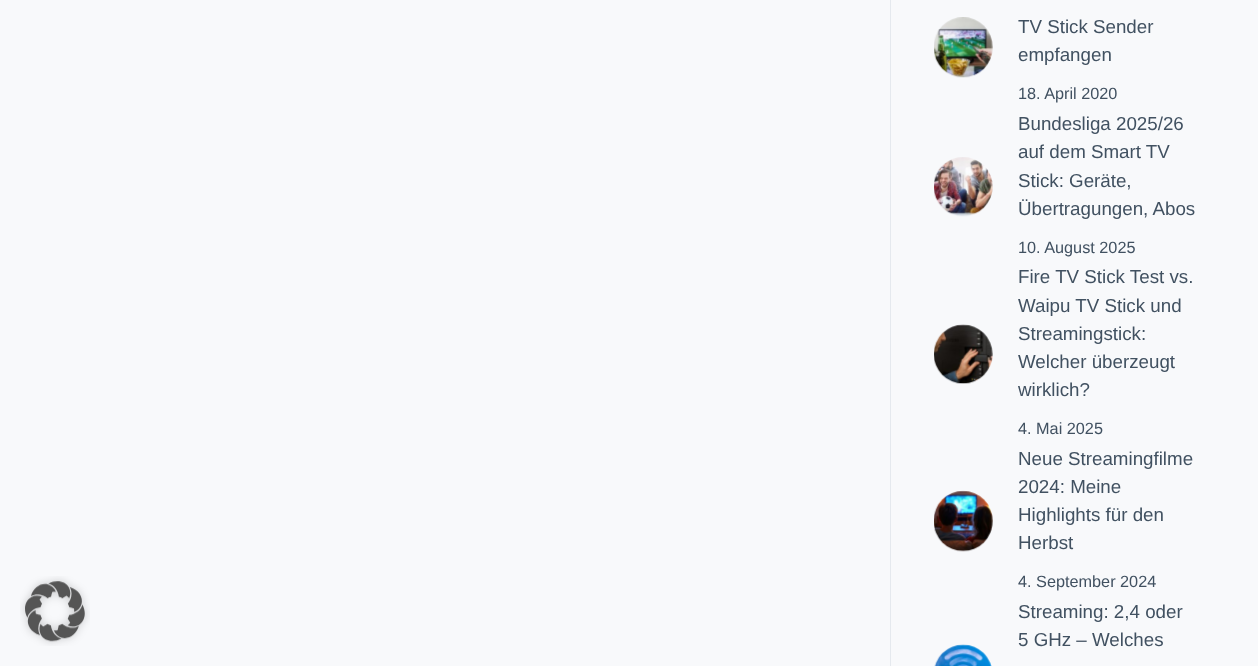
async function draw(canvas) {
  canvas.width = 1258
  canvas.height = 666
  const ctx = canvas.getContext('2d')
  ctx.miterLimit = 4
  ctx.fontKerning = 'normal'
  async function loadImage(src) {
    const img = new Image()
    img.src = src
    await img.decode()
    return img
  }

  ctx.fillStyle = '#f8f9fb'
  ctx.fillRect(0, 0, 1258, 666)
  ctx.drawImage(await loadImage('image0.png'), 20, 576, 70, 70)
  ctx.fillStyle = '#e5e9ee'
  ctx.fillRect(890, 0, 1, 666)
  ctx.drawImage(await loadImage('image1.png'), 934, 17, 59, 61)
  ctx.font = '18.75px Liberation Sans'
  ctx.fillStyle = '#415161'
  ctx.fillText('TV Stick Sender', 1018, 33)
  ctx.fillText('empfangen', 1018, 61)
  ctx.font = '16.25px Liberation Sans'
  ctx.fillText('18. April 2020', 1018, 99)
  ctx.drawImage(await loadImage('image2.png'), 934, 157, 59, 60)
  ctx.font = '18.75px Liberation Sans'
  ctx.fillText('Bundesliga 2025/26', 1018, 130)
  ctx.fillText('auf dem Smart TV', 1018, 158)
  ctx.fillText('Stick: Geräte,', 1018, 187)
  ctx.fillText('Übertragungen, Abos', 1018, 215)
  ctx.font = '16.25px Liberation Sans'
  ctx.fillText('10. August 2025', 1018, 253)
  ctx.drawImage(await loadImage('image3.png'), 934, 324, 59, 60)
  ctx.font = '18.75px Liberation Sans'
  ctx.fillText('Fire TV Stick Test vs.', 1018, 283)
  ctx.fillText('Waipu TV Stick und', 1018, 312)
  ctx.fillText('Streamingstick:', 1018, 340)
  ctx.fillText('Welcher überzeugt', 1018, 368)
  ctx.fillText('wirklich?', 1018, 396)
  ctx.font = '16.25px Liberation Sans'
  ctx.fillText('4. Mai 2025', 1018, 434)
  ctx.drawImage(await loadImage('image4.png'), 934, 490, 59, 62)
  ctx.font = '18.75px Liberation Sans'
  ctx.fillText('Neue Streamingfilme', 1018, 465)
  ctx.fillText('2024: Meine', 1018, 493)
  ctx.fillText('Highlights für den', 1018, 521)
  ctx.fillText('Herbst', 1018, 549)
  ctx.font = '16.25px Liberation Sans'
  ctx.fillText('4. September 2024', 1018, 587)
  ctx.font = '18.75px Liberation Sans'
  ctx.fillText('Streaming: 2,4 oder', 1018, 618)
  ctx.fillText('5 GHz – Welches', 1018, 646)
  ctx.drawImage(await loadImage('image5.png'), 934, 644, 58, 22)
}

draw(document.querySelector('canvas'))
